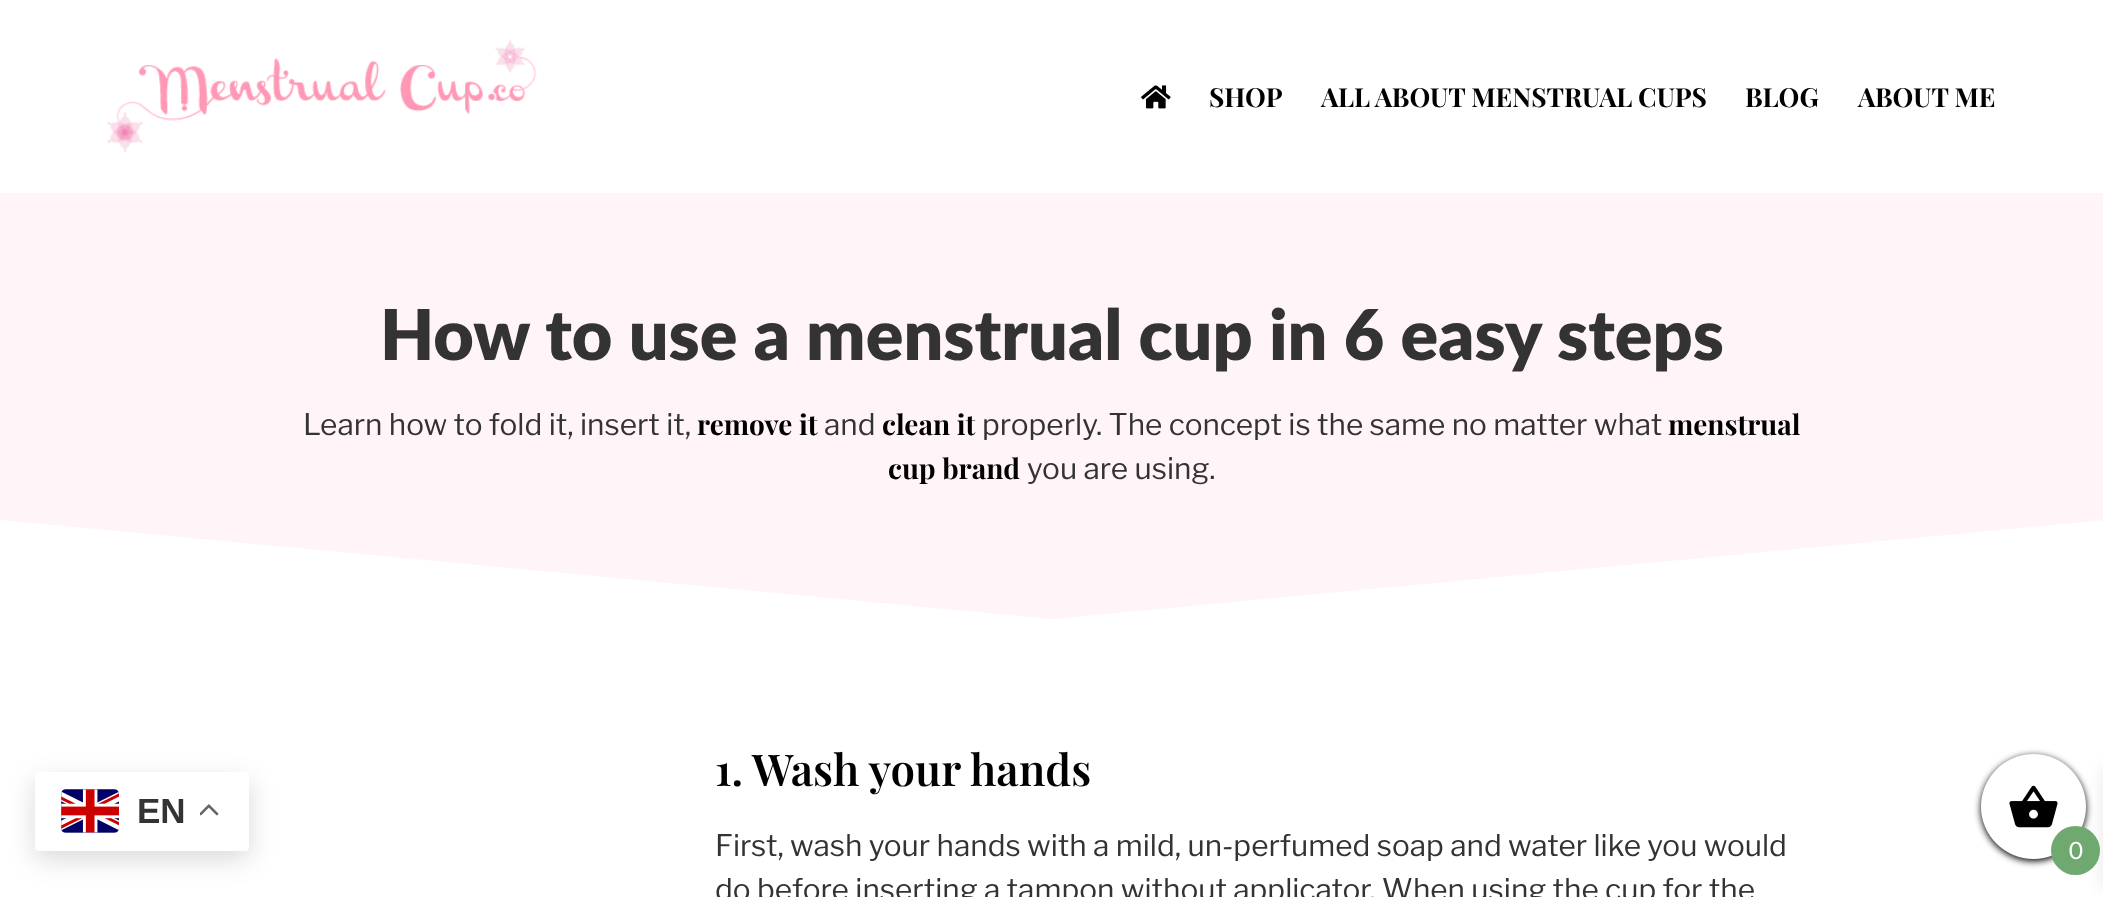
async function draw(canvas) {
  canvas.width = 2103
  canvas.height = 897
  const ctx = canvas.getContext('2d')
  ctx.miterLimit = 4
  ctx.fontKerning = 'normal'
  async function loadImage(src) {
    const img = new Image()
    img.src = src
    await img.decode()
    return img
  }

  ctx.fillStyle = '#fff'
  ctx.fillRect(0, 0, 2103, 897)
  ctx.drawImage(await loadImage('image0.png'), 107, 39, 430, 113)
  ctx.drawImage(await loadImage('image1.png'), 1141, 85, 30, 24)
  ctx.font = 'bold 26.25px Playfair Display'
  ctx.fillStyle = '#000'
  ctx.fillText('SHOP', 1209, 107)
  ctx.fillText('ALL ABOUT MENSTRUAL CUPS', 1321, 107)
  ctx.fillText('BLOG', 1745, 107)
  ctx.fillText('ABOUT ME', 1858, 107)
  ctx.fillStyle = '#00000026'
  ctx.filter = 'blur(13px)'
  ctx.beginPath()
  ctx.roundRect(35, 781, 214, 78, 4)
  ctx.fill()
  ctx.filter = 'none'
  ctx.fillStyle = '#fff'
  ctx.beginPath()
  ctx.roundRect(35, 772, 214, 79, 4)
  ctx.fill()
  ctx.drawImage(await loadImage('image2.png'), 61, 789, 58, 44)
  ctx.font = 'bold 35px Liberation Sans'
  ctx.fillStyle = '#333'
  ctx.fillText('EN', 137, 823)
  ctx.drawImage(await loadImage('image3.png'), 200, 804, 19, 12)
  ctx.fillStyle = '#fff4f7'
  ctx.fillRect(0, 193, 2103, 426)
  ctx.font = '800 70px Lato'
  ctx.fillStyle = '#333'
  ctx.fillText('How to use a menstrual cup in 6 easy steps', 380, 360)
  ctx.font = '29.75px Libre Franklin'
  ctx.fillText('Learn how to fold it, insert it,', 303, 435)
  ctx.font = 'bold 28px Playfair Display'
  ctx.fillStyle = '#000'
  ctx.fillText('remove it', 697, 435)
  ctx.font = '29.75px Libre Franklin'
  ctx.fillStyle = '#333'
  ctx.fillText('and', 824, 435)
  ctx.font = 'bold 28px Playfair Display'
  ctx.fillStyle = '#000'
  ctx.fillText('clean it', 882, 435)
  ctx.font = '29.75px Libre Franklin'
  ctx.fillStyle = '#333'
  ctx.fillText('properly. The concept is the same no matter what', 982, 435)
  ctx.font = 'bold 28px Playfair Display'
  ctx.fillStyle = '#000'
  ctx.fillText('menstrual', 1668, 435)
  ctx.fillText('cup brand', 888, 479)
  ctx.font = '29.75px Libre Franklin'
  ctx.fillStyle = '#333'
  ctx.fillText('you are using.', 1027, 479)
  ctx.fillStyle = '#fff'
  ctx.beginPath()
  ctx.moveTo(1052, 619)
  ctx.lineTo(-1, 520)
  ctx.lineTo(-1, 625)
  ctx.lineTo(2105, 625)
  ctx.lineTo(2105, 520)
  ctx.closePath()
  ctx.fill()
  ctx.font = '600 43.75px Playfair Display'
  ctx.fillStyle = '#000'
  ctx.fillText('1. Wash your hands', 715, 786)
  ctx.font = '29.75px Libre Franklin'
  ctx.fillStyle = '#333'
  ctx.fillText('First, wash your hands with a mild, un-perfumed soap and water like you would', 715, 856)
  ctx.fillText('do before inserting a tampon without applicator. When using the cup for the', 715, 900)
  ctx.fillStyle = '#000'
  ctx.filter = 'blur(3.5px)'
  ctx.beginPath()
  ctx.roundRect(1981, 756, 105, 105, 52.5)
  ctx.fill()
  ctx.filter = 'none'
  ctx.fillStyle = '#0000001a'
  ctx.filter = 'blur(9px)'
  ctx.beginPath()
  ctx.rect(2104, 770, 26, 119)
  ctx.fill()
  ctx.filter = 'none'
  ctx.fillStyle = '#fff'
  ctx.beginPath()
  ctx.arc(2033.5, 806.5, 52.5, 0, 2 * Math.PI)
  ctx.fill()
  ctx.drawImage(await loadImage('image4.png'), 2009, 785, 49, 43)
  ctx.fillStyle = '#70a970'
  ctx.beginPath()
  ctx.arc(2075.5, 850.5, 24.5, 0, 2 * Math.PI)
  ctx.fill()
  ctx.font = '23px Libre Franklin'
  ctx.fillStyle = '#fff'
  ctx.fillText('0', 2068, 859)
}

draw(document.querySelector('canvas'))
